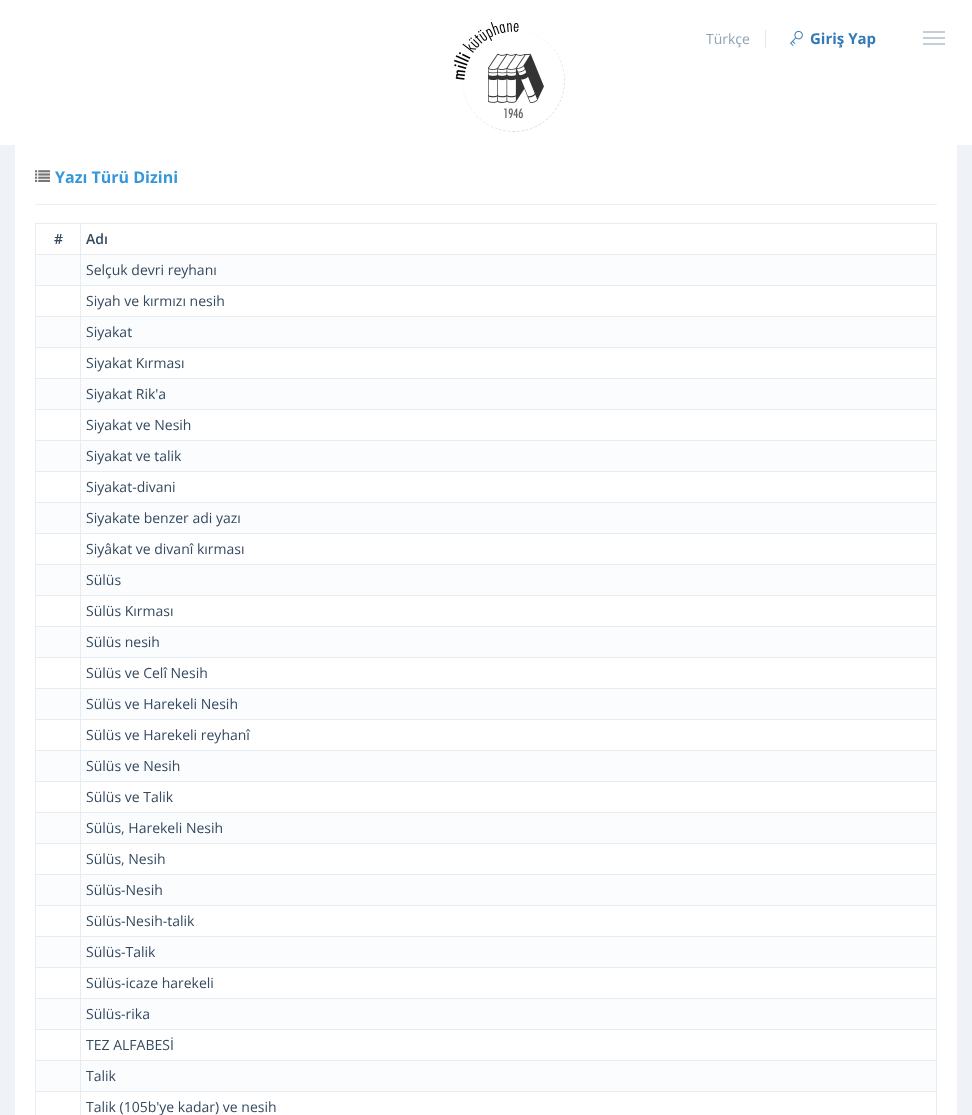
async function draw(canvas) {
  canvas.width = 972
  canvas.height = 1115
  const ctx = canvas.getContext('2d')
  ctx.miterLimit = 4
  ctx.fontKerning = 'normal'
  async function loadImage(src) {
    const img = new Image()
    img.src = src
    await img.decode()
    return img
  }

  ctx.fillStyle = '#eff3f8'
  ctx.fillRect(0, 0, 972, 1115)
  ctx.fillStyle = '#fff'
  ctx.fillRect(0, 0, 972, 145)
  ctx.drawImage(await loadImage('image0.png'), 454, 22, 111, 110)
  ctx.font = '14px Open Sans'
  ctx.fillStyle = '#8ea3b6'
  ctx.fillText('Türkçe', 706, 44)
  ctx.fillStyle = '#e3e8ec'
  ctx.fillRect(765, 30, 1, 18)
  ctx.drawImage(await loadImage('image1.png'), 790, 30, 13, 16)
  ctx.font = 'bold 15px Open Sans'
  ctx.fillStyle = '#337ab7'
  ctx.fillText('Giriş Yap', 810, 44)
  ctx.drawImage(await loadImage('image2.png'), 923, 31, 22, 14)
  ctx.fillStyle = '#fff'
  ctx.fillRect(15, 145, 942, 970)
  ctx.fillStyle = '#eee'
  ctx.fillRect(35, 204, 902, 1)
  ctx.drawImage(await loadImage('image3.png'), 35, 170, 15, 12)
  ctx.font = 'bold 16px Open Sans'
  ctx.fillStyle = '#3598dc'
  ctx.fillText('Yazı Türü Dizini', 55, 183)
  ctx.fillStyle = '#e7ecf1'
  ctx.fillRect(35, 223, 902, 1)
  ctx.fillRect(936, 223, 1, 892)
  ctx.fillRect(35, 223, 1, 892)
  ctx.font = '600 14px Open Sans'
  ctx.fillStyle = '#34495e'
  ctx.fillText('#', 54, 244)
  ctx.fillStyle = '#e7ecf1'
  ctx.fillRect(80, 254, 857, 1)
  ctx.fillStyle = '#fbfcfd'
  ctx.fillRect(36, 255, 900, 30)
  ctx.fillStyle = '#e7ecf1'
  ctx.fillRect(80, 285, 857, 1)
  ctx.fillRect(80, 316, 857, 1)
  ctx.fillStyle = '#fbfcfd'
  ctx.fillRect(36, 317, 900, 30)
  ctx.fillStyle = '#e7ecf1'
  ctx.fillRect(80, 347, 857, 1)
  ctx.fillRect(80, 378, 857, 1)
  ctx.fillStyle = '#fbfcfd'
  ctx.fillRect(36, 379, 900, 30)
  ctx.fillStyle = '#e7ecf1'
  ctx.fillRect(80, 409, 857, 1)
  ctx.fillRect(80, 440, 857, 1)
  ctx.fillStyle = '#fbfcfd'
  ctx.fillRect(36, 441, 900, 30)
  ctx.fillStyle = '#e7ecf1'
  ctx.fillRect(80, 471, 857, 1)
  ctx.fillRect(80, 502, 857, 1)
  ctx.fillStyle = '#fbfcfd'
  ctx.fillRect(36, 503, 900, 30)
  ctx.fillStyle = '#e7ecf1'
  ctx.fillRect(80, 533, 857, 1)
  ctx.fillRect(80, 564, 857, 1)
  ctx.fillStyle = '#fbfcfd'
  ctx.fillRect(36, 565, 900, 30)
  ctx.fillStyle = '#e7ecf1'
  ctx.fillRect(80, 595, 857, 1)
  ctx.fillRect(80, 626, 857, 1)
  ctx.fillStyle = '#fbfcfd'
  ctx.fillRect(36, 627, 900, 30)
  ctx.fillStyle = '#e7ecf1'
  ctx.fillRect(80, 657, 857, 1)
  ctx.fillRect(80, 688, 857, 1)
  ctx.fillStyle = '#fbfcfd'
  ctx.fillRect(36, 689, 900, 30)
  ctx.fillStyle = '#e7ecf1'
  ctx.fillRect(80, 719, 857, 1)
  ctx.fillRect(80, 750, 857, 1)
  ctx.fillStyle = '#fbfcfd'
  ctx.fillRect(36, 751, 900, 30)
  ctx.fillStyle = '#e7ecf1'
  ctx.fillRect(80, 781, 857, 1)
  ctx.fillRect(80, 812, 857, 1)
  ctx.fillStyle = '#fbfcfd'
  ctx.fillRect(36, 813, 900, 30)
  ctx.fillStyle = '#e7ecf1'
  ctx.fillRect(80, 843, 857, 1)
  ctx.fillRect(80, 874, 857, 1)
  ctx.fillStyle = '#fbfcfd'
  ctx.fillRect(36, 875, 900, 30)
  ctx.fillStyle = '#e7ecf1'
  ctx.fillRect(80, 905, 857, 1)
  ctx.fillRect(80, 936, 857, 1)
  ctx.fillStyle = '#fbfcfd'
  ctx.fillRect(36, 937, 900, 30)
  ctx.fillStyle = '#e7ecf1'
  ctx.fillRect(80, 967, 857, 1)
  ctx.fillRect(80, 998, 857, 1)
  ctx.fillStyle = '#fbfcfd'
  ctx.fillRect(36, 999, 900, 30)
  ctx.fillStyle = '#e7ecf1'
  ctx.fillRect(80, 1029, 857, 1)
  ctx.fillRect(80, 1060, 857, 1)
  ctx.fillStyle = '#fbfcfd'
  ctx.fillRect(36, 1061, 900, 30)
  ctx.fillStyle = '#e7ecf1'
  ctx.fillRect(80, 1091, 857, 1)
  ctx.fillRect(80, 1091, 1, 24)
  ctx.fillRect(35, 1091, 46, 1)
  ctx.fillRect(80, 1060, 1, 32)
  ctx.fillRect(35, 1060, 46, 1)
  ctx.fillRect(80, 1029, 1, 32)
  ctx.fillRect(35, 1029, 46, 1)
  ctx.fillRect(80, 998, 1, 32)
  ctx.fillRect(35, 998, 46, 1)
  ctx.fillRect(80, 967, 1, 32)
  ctx.fillRect(35, 967, 46, 1)
  ctx.fillRect(80, 936, 1, 32)
  ctx.fillRect(35, 936, 46, 1)
  ctx.fillRect(80, 905, 1, 32)
  ctx.fillRect(35, 905, 46, 1)
  ctx.fillRect(80, 874, 1, 32)
  ctx.fillRect(35, 874, 46, 1)
  ctx.fillRect(80, 843, 1, 32)
  ctx.fillRect(35, 843, 46, 1)
  ctx.fillRect(80, 812, 1, 32)
  ctx.fillRect(35, 812, 46, 1)
  ctx.fillRect(80, 781, 1, 32)
  ctx.fillRect(35, 781, 46, 1)
  ctx.fillRect(80, 750, 1, 32)
  ctx.fillRect(35, 750, 46, 1)
  ctx.fillRect(80, 719, 1, 32)
  ctx.fillRect(35, 719, 46, 1)
  ctx.fillRect(80, 688, 1, 32)
  ctx.fillRect(35, 688, 46, 1)
  ctx.fillRect(80, 657, 1, 32)
  ctx.fillRect(35, 657, 46, 1)
  ctx.fillRect(80, 626, 1, 32)
  ctx.fillRect(35, 626, 46, 1)
  ctx.fillRect(80, 595, 1, 32)
  ctx.fillRect(35, 595, 46, 1)
  ctx.fillRect(80, 564, 1, 32)
  ctx.fillRect(35, 564, 46, 1)
  ctx.fillRect(80, 533, 1, 32)
  ctx.fillRect(35, 533, 46, 1)
  ctx.fillRect(80, 502, 1, 32)
  ctx.fillRect(35, 502, 46, 1)
  ctx.fillRect(80, 471, 1, 32)
  ctx.fillRect(35, 471, 46, 1)
  ctx.fillRect(80, 440, 1, 32)
  ctx.fillRect(35, 440, 46, 1)
  ctx.fillRect(80, 409, 1, 32)
  ctx.fillRect(35, 409, 46, 1)
  ctx.fillRect(80, 378, 1, 32)
  ctx.fillRect(35, 378, 46, 1)
  ctx.fillRect(80, 347, 1, 32)
  ctx.fillRect(35, 347, 46, 1)
  ctx.fillRect(80, 316, 1, 32)
  ctx.fillRect(35, 316, 46, 1)
  ctx.fillRect(80, 285, 1, 32)
  ctx.fillRect(35, 285, 46, 1)
  ctx.fillRect(80, 254, 1, 32)
  ctx.fillRect(35, 254, 46, 1)
  ctx.fillRect(80, 223, 1, 32)
  ctx.fillStyle = '#34495e'
  ctx.fillText('Adı', 86, 244)
  ctx.font = '14px Open Sans'
  ctx.fillText('Selçuk devri reyhanı', 86, 275)
  ctx.fillText('Siyah ve kırmızı nesih', 86, 306)
  ctx.fillText('Siyakat', 86, 337)
  ctx.fillText('Siyakat Kırması', 86, 368)
  ctx.fillText('Siyakat Rik\'a', 86, 399)
  ctx.fillText('Siyakat ve Nesih', 86, 430)
  ctx.fillText('Siyakat ve talik', 86, 461)
  ctx.fillText('Siyakat-divani', 86, 492)
  ctx.fillText('Siyakate benzer adi yazı', 86, 523)
  ctx.fillText('Siyâkat ve divanî kırması', 86, 554)
  ctx.fillText('Sülüs', 86, 585)
  ctx.fillText('Sülüs Kırması', 86, 616)
  ctx.fillText('Sülüs nesih', 86, 647)
  ctx.fillText('Sülüs ve Celî Nesih', 86, 678)
  ctx.fillText('Sülüs ve Harekeli Nesih', 86, 709)
  ctx.fillText('Sülüs ve Harekeli reyhanî', 86, 740)
  ctx.fillText('Sülüs ve Nesih', 86, 771)
  ctx.fillText('Sülüs ve Talik', 86, 802)
  ctx.fillText('Sülüs, Harekeli Nesih', 86, 833)
  ctx.fillText('Sülüs, Nesih', 86, 864)
  ctx.fillText('Sülüs-Nesih', 86, 895)
  ctx.fillText('Sülüs-Nesih-talik', 86, 926)
  ctx.fillText('Sülüs-Talik', 86, 957)
  ctx.fillText('Sülüs-icaze harekeli', 86, 988)
  ctx.fillText('Sülüs-rika', 86, 1019)
  ctx.fillText('TEZ ALFABESİ', 86, 1050)
  ctx.fillText('Talik', 86, 1081)
  ctx.fillText('Talik (105b\'ye kadar) ve nesih', 86, 1112)
}

draw(document.querySelector('canvas'))
